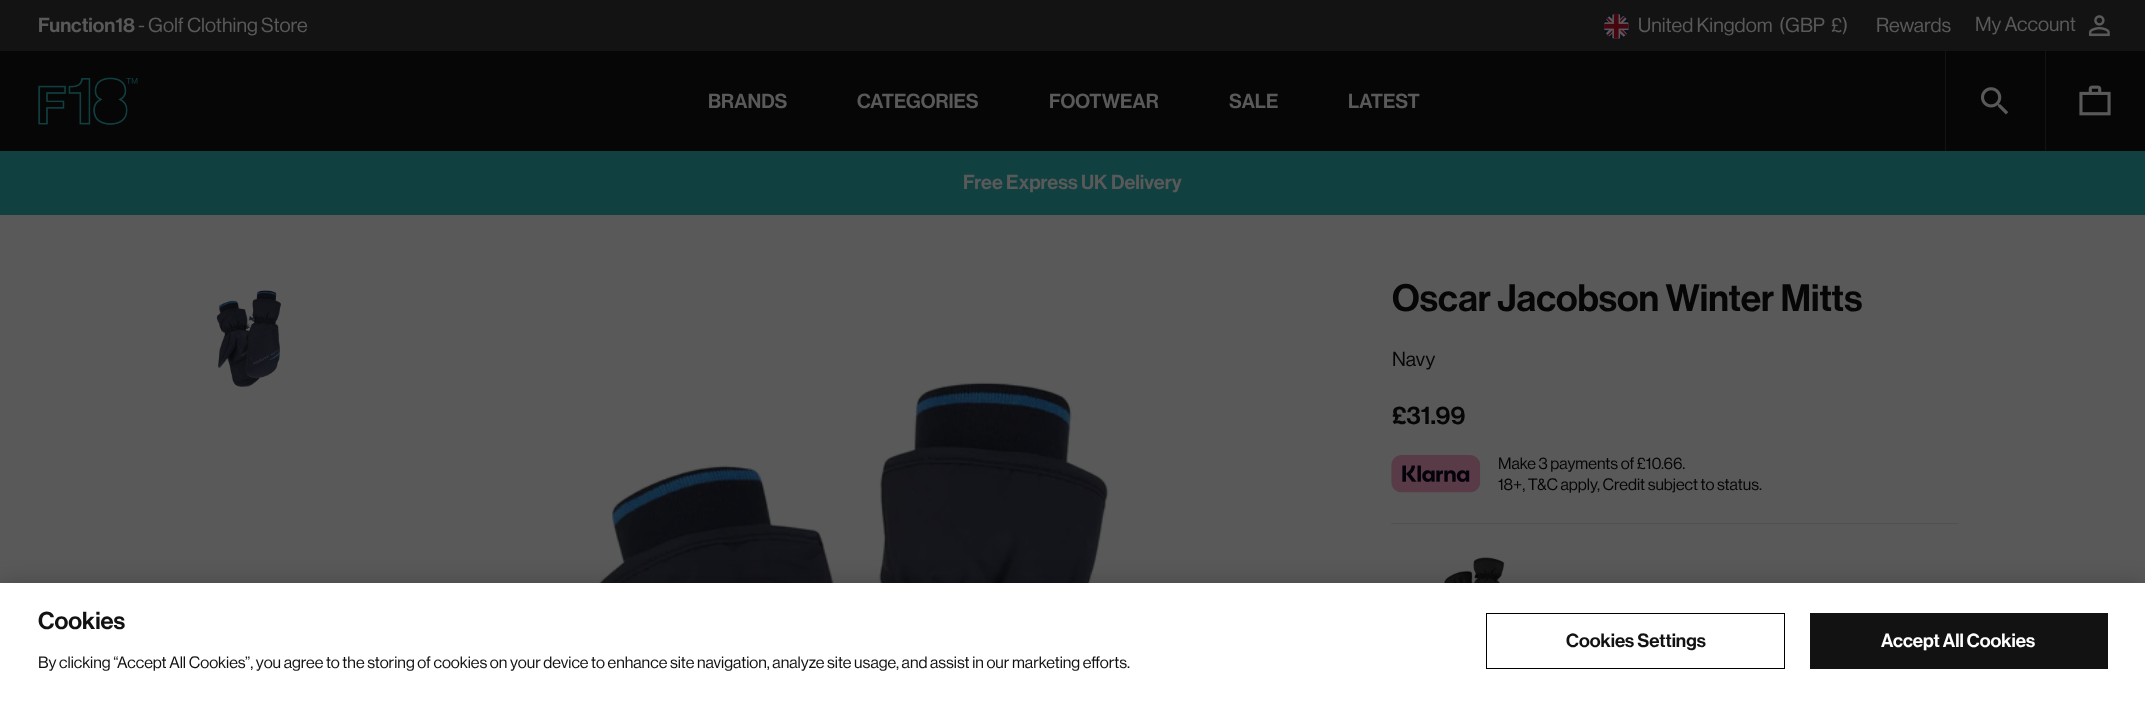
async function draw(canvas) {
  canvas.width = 2145
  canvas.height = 712
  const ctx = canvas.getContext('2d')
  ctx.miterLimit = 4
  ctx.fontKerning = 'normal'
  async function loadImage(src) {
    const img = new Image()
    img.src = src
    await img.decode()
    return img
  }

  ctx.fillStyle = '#595959'
  ctx.fillRect(0, 0, 2145, 712)
  ctx.fillStyle = '#060606'
  ctx.fillRect(0, 51, 2145, 100)
  ctx.fillStyle = '#131313'
  ctx.fillRect(0, 0, 2145, 51)
  ctx.font = '500 20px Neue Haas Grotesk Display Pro'
  ctx.fillStyle = '#595959'
  ctx.fillText('Function18', 38, 32)
  ctx.font = '500 20px "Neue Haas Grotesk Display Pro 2"'
  ctx.fillText('- Golf Clothing Store', 138, 32)
  ctx.drawImage(await loadImage('image0.png'), 1604, 14, 25, 25)
  ctx.fillText('United Kingdom', 1638, 32)
  ctx.fillText('(GBP', 1779, 32)
  ctx.fillText('£)', 1831, 32)
  ctx.fillText('Rewards', 1876, 32)
  ctx.fillText('My Account', 1975, 31)
  ctx.drawImage(await loadImage('image1.png'), 2088, 15, 22, 22)
  ctx.drawImage(await loadImage('image2.png'), 38, 77, 100, 48)
  ctx.font = '500 20px Neue Haas Grotesk Display Pro'
  ctx.fillText('BRANDS', 708, 108)
  ctx.fillText('CATEGORIES', 857, 108)
  ctx.fillText('FOOTWEAR', 1049, 108)
  ctx.fillText('SALE', 1229, 108)
  ctx.fillText('LATEST', 1348, 108)
  ctx.fillStyle = '#131313'
  ctx.fillRect(1945, 51, 1, 100)
  ctx.drawImage(await loadImage('image3.png'), 1980, 87, 29, 28)
  ctx.fillRect(2045, 51, 1, 100)
  ctx.drawImage(await loadImage('image4.png'), 2079, 85, 32, 31)
  ctx.fillStyle = '#114041'
  ctx.fillRect(0, 151, 2145, 64)
  ctx.fillStyle = '#595959'
  ctx.fillText('Free Express UK Delivery', 963, 189)
  ctx.drawImage(await loadImage('image5.png'), 216, 290, 66, 97)
  ctx.drawImage(await loadImage('image6.png'), 592, 380, 517, 203)
  ctx.font = '500 37.5px Neue Haas Grotesk Display Pro'
  ctx.fillStyle = '#060606'
  ctx.fillText('Oscar Jacobson Winter Mitts', 1392, 311)
  ctx.font = '500 20px "Neue Haas Grotesk Display Pro 2"'
  ctx.fillText('Navy', 1392, 366)
  ctx.font = '500 25px Neue Haas Grotesk Display Pro'
  ctx.fillText('£31.99', 1392, 424)
  ctx.drawImage(await loadImage('image7.png'), 1391, 455, 90, 38)
  ctx.font = '500 16.25px "Neue Haas Grotesk Display Pro 2"'
  ctx.fillText('Make 3 payments of £10.66.', 1498, 469)
  ctx.fillText('18+, T&C apply, Credit subject to status.', 1498, 490)
  ctx.fillStyle = '#515151'
  ctx.fillRect(1391, 523, 567, 1)
  ctx.drawImage(await loadImage('image8.png'), 1444, 557, 61, 26)
  ctx.fillStyle = '#00000033'
  ctx.filter = 'blur(11px)'
  ctx.beginPath()
  ctx.rect(0, 583, 2145, 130)
  ctx.fill()
  ctx.filter = 'none'
  ctx.fillStyle = '#fff'
  ctx.fillRect(0, 583, 2145, 129)
  ctx.font = '500 24px Neue Haas Grotesk Display Pro'
  ctx.fillStyle = '#121212'
  ctx.fillText('Cookies', 38, 629)
  ctx.font = '500 16.25px "Neue Haas Grotesk Display Pro 2"'
  ctx.fillText('By clicking “Accept All Cookies”, you agree to the storing of cookies on your device to enhance site navigation, analyze site usage, and assist in our marketing efforts.', 38, 668)
  ctx.strokeStyle = '#000'
  ctx.strokeRect(1486.5, 613.5, 298, 55)
  ctx.font = '500 18.75px Neue Haas Grotesk Display Pro'
  ctx.fillText('Cookies Settings', 1566, 647)
  ctx.fillRect(1810, 613, 298, 56)
  ctx.fillStyle = '#fff'
  ctx.fillText('Accept All Cookies', 1881, 647)
}

draw(document.querySelector('canvas'))
